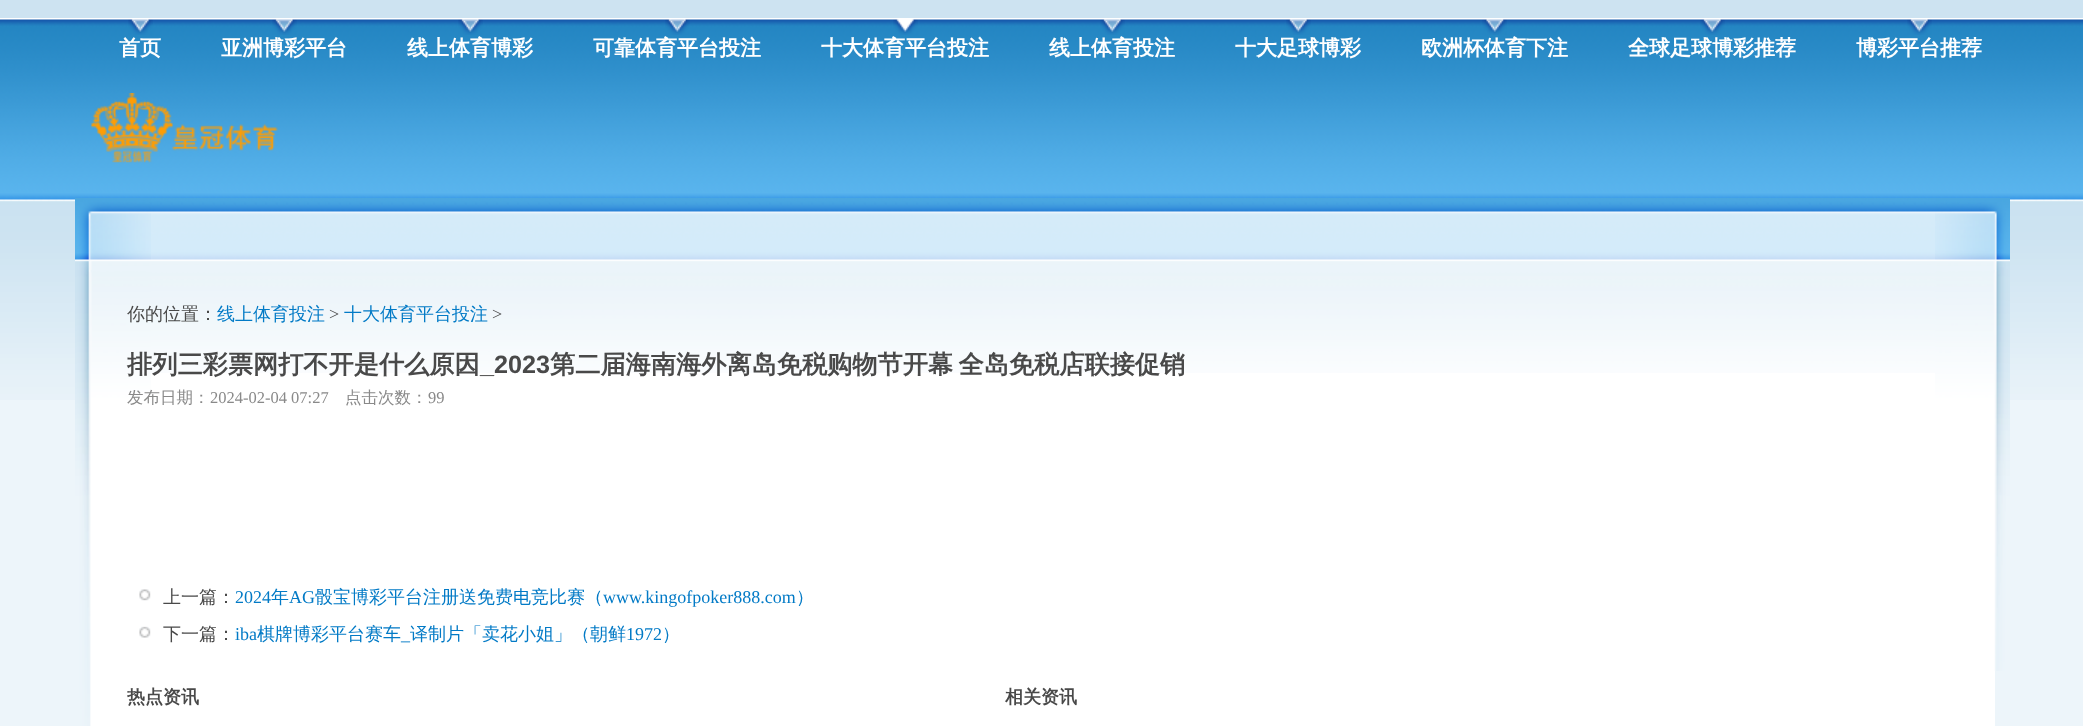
async function draw(canvas) {
  canvas.width = 2083
  canvas.height = 726
  const ctx = canvas.getContext('2d')
  ctx.miterLimit = 4
  ctx.fontKerning = 'normal'
  async function loadImage(src) {
    const img = new Image()
    img.src = src
    await img.decode()
    return img
  }

  ctx.fillStyle = '#cde3f1'
  ctx.fillRect(0, 0, 2083, 726)
  ctx.fillStyle = '#edf5fa'
  ctx.fillRect(0, 400, 2083, 326)
  ctx.drawImage(await loadImage('image0.png'), 0, 18, 2083, 382)
  ctx.drawImage(await loadImage('image1.png'), 128, 19, 25, 16)
  ctx.font = 'bold 21px WenQuanYi Zen Hei'
  ctx.fillStyle = '#fff'
  ctx.fillText('首页', 119, 55)
  ctx.drawImage(await loadImage('image1.png'), 272, 19, 25, 16)
  ctx.fillText('亚洲博彩平台', 221, 55)
  ctx.drawImage(await loadImage('image1.png'), 458, 19, 25, 16)
  ctx.fillText('线上体育博彩', 407, 55)
  ctx.drawImage(await loadImage('image2.png'), 665, 19, 25, 16)
  ctx.fillText('可靠体育平台投注', 593, 55)
  ctx.drawImage(await loadImage('image3.png'), 893, 19, 25, 16)
  ctx.fillText('十大体育平台投注', 821, 55)
  ctx.drawImage(await loadImage('image1.png'), 1100, 19, 25, 16)
  ctx.fillText('线上体育投注', 1049, 55)
  ctx.drawImage(await loadImage('image2.png'), 1286, 19, 25, 16)
  ctx.fillText('十大足球博彩', 1235, 55)
  ctx.drawImage(await loadImage('image4.png'), 1482, 19, 25, 16)
  ctx.fillText('欧洲杯体育下注', 1421, 55)
  ctx.drawImage(await loadImage('image1.png'), 1700, 19, 25, 16)
  ctx.fillText('全球足球博彩推荐', 1628, 55)
  ctx.drawImage(await loadImage('image2.png'), 1907, 19, 25, 16)
  ctx.fillText('博彩平台推荐', 1856, 55)
  ctx.drawImage(await loadImage('image5.png'), 91, 93, 187, 70)
  ctx.fillRect(151, 373, 1844, 353)
  ctx.drawImage(await loadImage('image6.png'), 151, 198, 1784, 175)
  ctx.drawImage(await loadImage('image7.png'), 1935, 198, 75, 473)
  ctx.drawImage(await loadImage('image8.png'), 75, 198, 76, 528)
  ctx.font = '500 18px WenQuanYi Zen Hei'
  ctx.fillStyle = '#494949'
  ctx.fillText('你的位置：', 127, 320)
  ctx.fillStyle = '#027ac6'
  ctx.fillText('线上体育投注', 217, 320)
  ctx.font = '18px Liberation Serif'
  ctx.fillStyle = '#494949'
  ctx.fillText('>', 329, 320)
  ctx.font = '500 18px WenQuanYi Zen Hei'
  ctx.fillStyle = '#027ac6'
  ctx.fillText('十大体育平台投注', 344, 320)
  ctx.font = '18px Liberation Serif'
  ctx.fillStyle = '#494949'
  ctx.fillText('>', 492, 320)
  ctx.font = 'bold 25.2px WenQuanYi Zen Hei'
  ctx.fillText('排列三彩票网打不开是什么原因', 127, 373)
  ctx.font = 'bold 25.2px Liberation Sans'
  ctx.fillText('_2023', 480, 373)
  ctx.wordSpacing = '-2px'
  ctx.font = 'bold 25.2px WenQuanYi Zen Hei'
  ctx.fillText('第二届海南海外离岛免税购物节开幕 全岛免税店联接促销', 550, 373)
  ctx.wordSpacing = '0px'
  ctx.font = '500 16.5px WenQuanYi Zen Hei'
  ctx.fillStyle = '#898989'
  ctx.fillText('发布日期：', 127, 403)
  ctx.font = '16.5px Liberation Serif'
  ctx.fillText('2024-02-04 07:27', 210, 403)
  ctx.font = '500 16.5px WenQuanYi Zen Hei'
  ctx.fillText('点击次数：', 345, 403)
  ctx.font = '16.5px Liberation Serif'
  ctx.fillText('99', 428, 403)
  ctx.drawImage(await loadImage('image9.png'), 139, 589, 12, 12)
  ctx.font = '500 18px WenQuanYi Zen Hei'
  ctx.fillStyle = '#494949'
  ctx.fillText('上一篇：', 163, 603)
  ctx.font = '18px Liberation Serif'
  ctx.fillStyle = '#027ac6'
  ctx.fillText('2024', 235, 603)
  ctx.font = '500 18px WenQuanYi Zen Hei'
  ctx.fillText('年', 271, 603)
  ctx.font = '18px Liberation Serif'
  ctx.fillText('AG', 289, 603)
  ctx.font = '500 18px WenQuanYi Zen Hei'
  ctx.fillText('骰宝博彩平台注册送免费电竞比赛（', 315, 603)
  ctx.font = '18px Liberation Serif'
  ctx.fillText('www.kingofpoker888.com', 603, 603)
  ctx.font = '500 18px WenQuanYi Zen Hei'
  ctx.fillText('）', 796, 603)
  ctx.drawImage(await loadImage('image10.png'), 139, 626, 12, 12)
  ctx.fillStyle = '#494949'
  ctx.fillText('下一篇：', 163, 640)
  ctx.font = '18px Liberation Serif'
  ctx.fillStyle = '#027ac6'
  ctx.fillText('iba', 235, 640)
  ctx.font = '500 18px WenQuanYi Zen Hei'
  ctx.fillText('棋牌博彩平台赛车', 257, 640)
  ctx.font = '18px Liberation Serif'
  ctx.fillText('_', 401, 640)
  ctx.font = '500 18px WenQuanYi Zen Hei'
  ctx.fillText('译制片「卖花小姐」（朝鲜', 410, 640)
  ctx.font = '18px Liberation Serif'
  ctx.fillText('1972', 626, 640)
  ctx.font = '500 18px WenQuanYi Zen Hei'
  ctx.fillText('）', 662, 640)
  ctx.font = 'bold 18px WenQuanYi Zen Hei'
  ctx.fillStyle = '#494949'
  ctx.fillText('热点资讯', 127, 703)
  ctx.fillText('相关资讯', 1005, 703)
}

draw(document.querySelector('canvas'))
